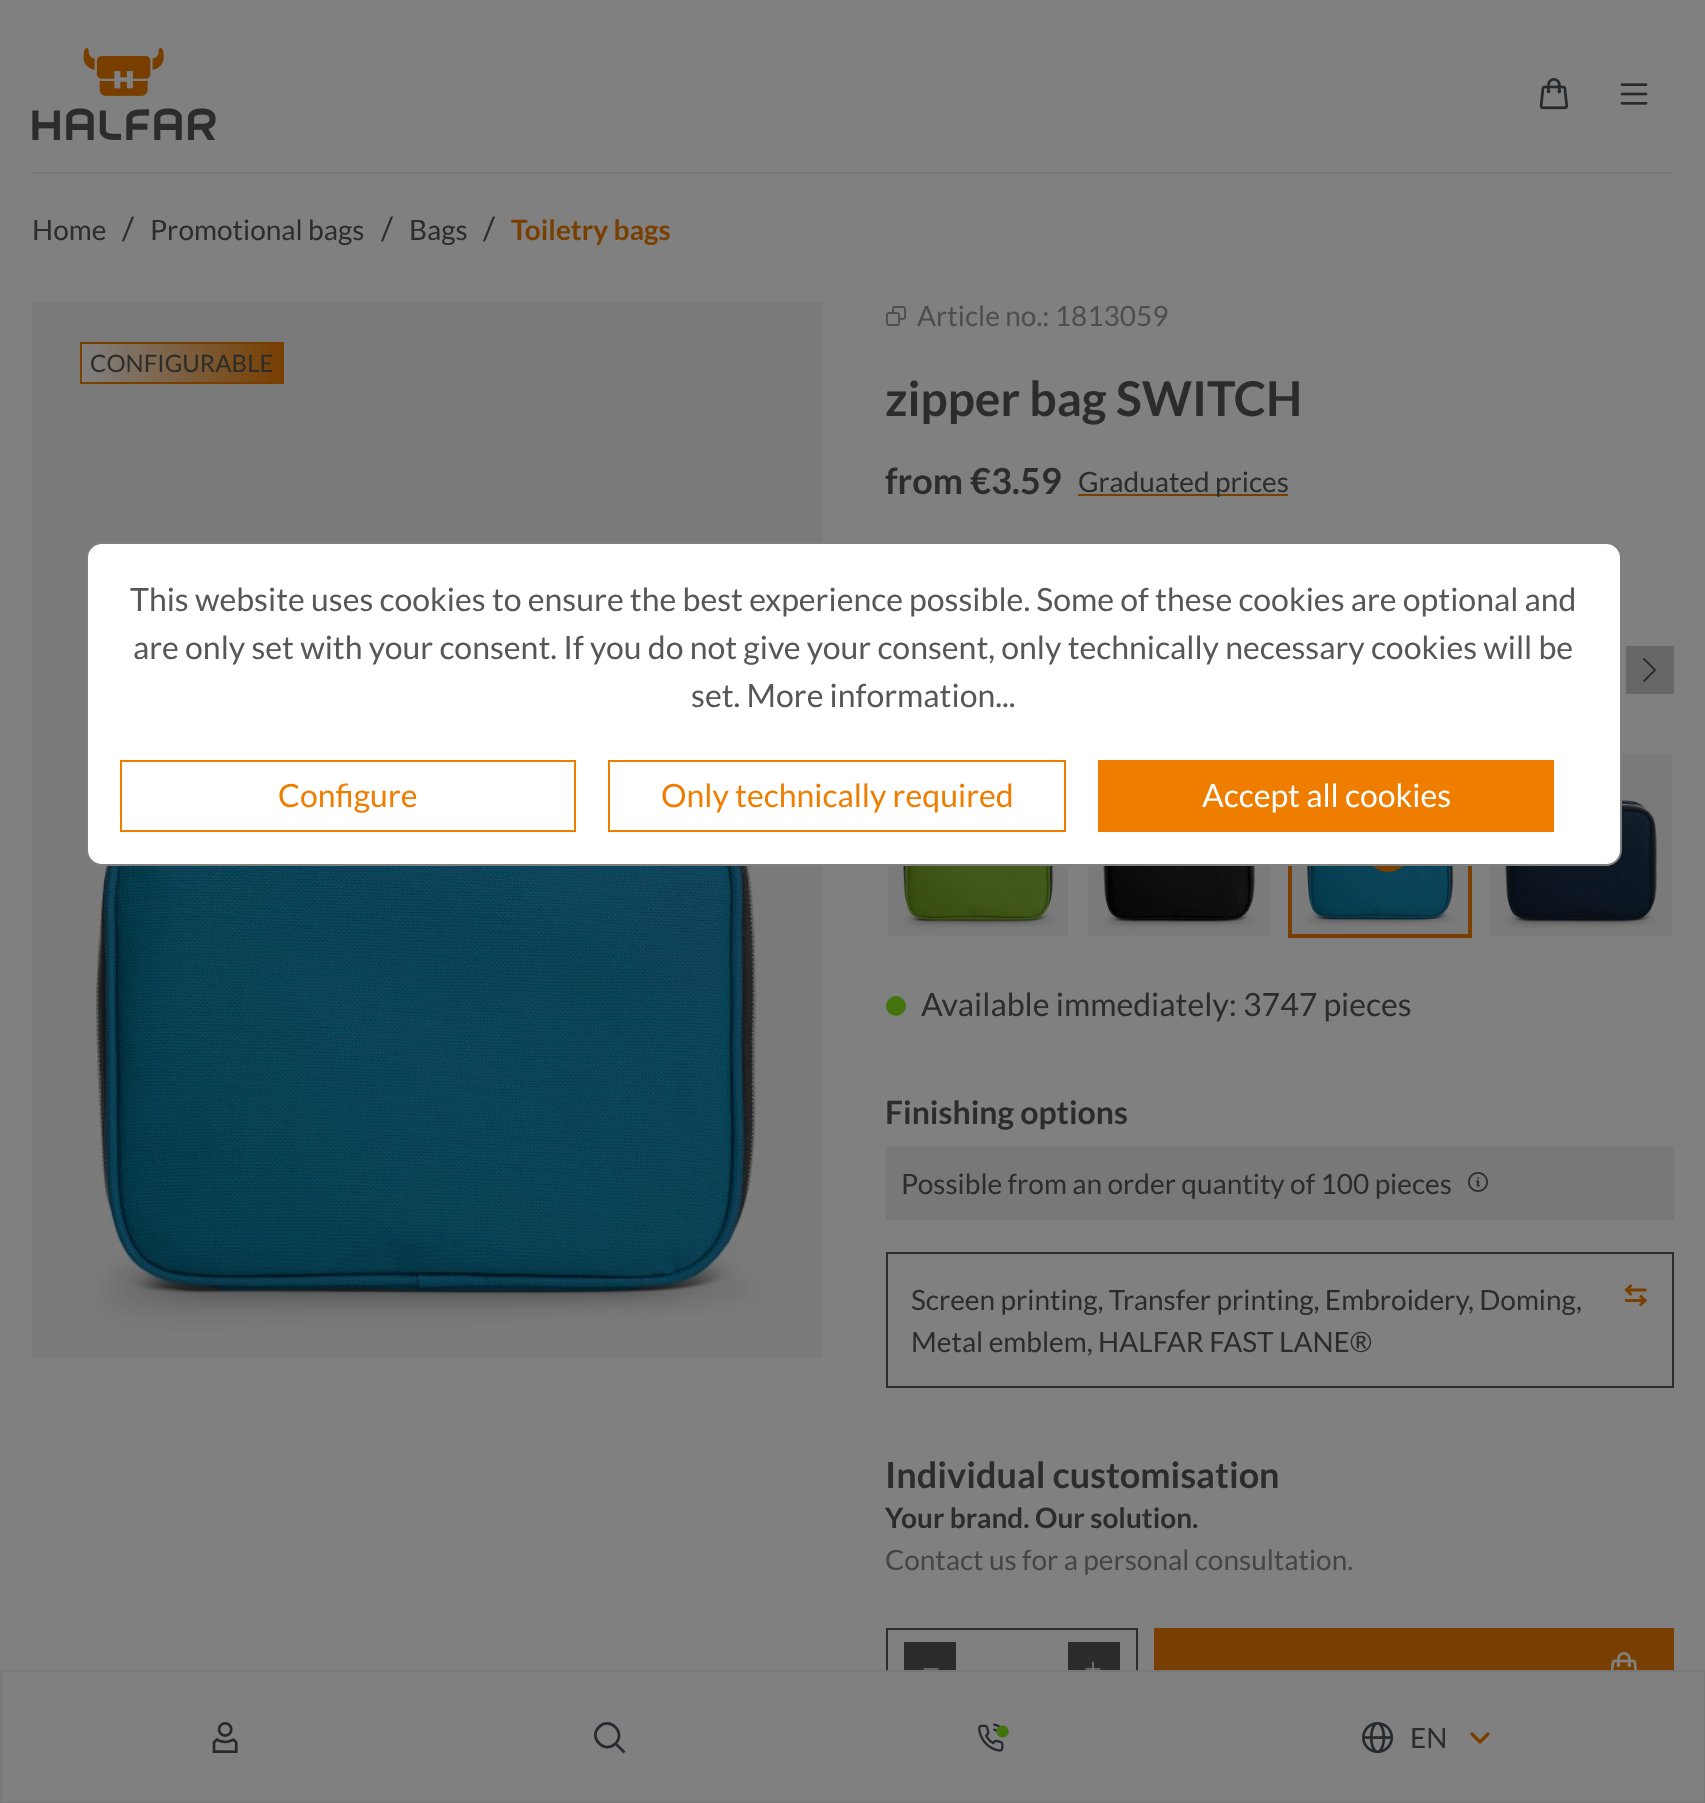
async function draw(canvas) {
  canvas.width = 1705
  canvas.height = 1803
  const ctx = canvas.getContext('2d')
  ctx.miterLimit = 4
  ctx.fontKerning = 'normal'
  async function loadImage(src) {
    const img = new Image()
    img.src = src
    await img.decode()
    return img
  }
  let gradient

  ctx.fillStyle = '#808080'
  ctx.fillRect(0, 0, 1705, 1803)
  ctx.font = '28px Lato'
  ctx.fillStyle = '#2c2c2b'
  ctx.fillText('Home', 32, 240)
  ctx.font = '32px Lato'
  ctx.fillText('/', 122, 240)
  ctx.font = '28px Lato'
  ctx.fillText('Promotional bags', 150, 240)
  ctx.font = '32px Lato'
  ctx.fillText('/', 381, 240)
  ctx.font = '28px Lato'
  ctx.fillText('Bags', 409, 240)
  ctx.font = '32px Lato'
  ctx.fillText('/', 483, 240)
  ctx.font = 'bold 28px Lato'
  ctx.fillStyle = '#783f00'
  ctx.fillText('Toiletry bags', 511, 240)
  ctx.drawImage(await loadImage('image0.png'), 32, 302, 790, 1056)
  gradient = ctx.createLinearGradient(82, 363, 282, 363)
  gradient.addColorStop(0, '#808080')
  gradient.addColorStop(1, '#783f00')
  ctx.fillStyle = gradient
  ctx.fillRect(82, 344, 200, 38)
  ctx.strokeStyle = '#783f00'
  ctx.lineWidth = 2
  ctx.strokeRect(81, 343, 202, 40)
  ctx.font = '24px Lato'
  ctx.fillStyle = '#2c2c2b'
  ctx.fillText('CONFIGURABLE', 90, 372)
  ctx.drawImage(await loadImage('image1.png'), 886, 306, 20, 20)
  ctx.font = '28px Lato'
  ctx.fillStyle = '#4d4d4d'
  ctx.fillText('Article no.: 1813059', 917, 326)
  ctx.font = 'bold 48px Lato'
  ctx.fillStyle = '#2c2c2b'
  ctx.fillText('zipper bag SWITCH', 885, 416)
  ctx.font = 'bold 36px Lato'
  ctx.fillText('from €3.59', 885, 494)
  ctx.fillStyle = '#783f00'
  ctx.fillRect(1078, 494, 210, 2)
  ctx.font = '28px Lato'
  ctx.fillStyle = '#2c2c2b'
  ctx.fillText('Graduated prices', 1078, 492)
  ctx.fillStyle = '#676766'
  ctx.fillRect(1626, 646, 48, 48)
  ctx.drawImage(await loadImage('image2.png'), 1643, 658, 13, 24)
  ctx.drawImage(await loadImage('image3.png'), 888, 866, 180, 70)
  ctx.drawImage(await loadImage('image4.png'), 1088, 866, 182, 70)
  ctx.lineWidth = 4
  ctx.strokeRect(1290, 754, 180, 182)
  ctx.drawImage(await loadImage('image5.png'), 1292, 866, 176, 68)
  ctx.fillStyle = '#783f00'
  ctx.beginPath()
  ctx.arc(1388, 850, 22, 0, 2 * Math.PI)
  ctx.fill()
  ctx.drawImage(await loadImage('image6.png'), 1490, 754, 182, 182)
  ctx.fillStyle = '#42740e'
  ctx.beginPath()
  ctx.arc(896, 1006, 10, 0, 2 * Math.PI)
  ctx.fill()
  ctx.font = '32px Lato'
  ctx.fillStyle = '#2c2c2b'
  ctx.fillText('Available immediately: 3747 pieces', 921, 1016)
  ctx.font = 'bold 32px Lato'
  ctx.fillText('Finishing options', 885, 1124)
  ctx.fillStyle = '#787878'
  ctx.fillRect(886, 1146, 788, 74)
  ctx.font = '28px Lato'
  ctx.fillStyle = '#2c2c2b'
  ctx.fillText('Possible from an order quantity of 100 pieces', 901, 1194)
  ctx.drawImage(await loadImage('image7.png'), 1468, 1172, 20, 20)
  ctx.strokeStyle = '#2c2c2b'
  ctx.lineWidth = 2
  ctx.strokeRect(887, 1253, 786, 134)
  ctx.fillText('Screen printing, Transfer printing, Embroidery, Doming,', 911, 1310)
  ctx.fillText('Metal emblem, HALFAR FAST LANE®', 911, 1352)
  ctx.beginPath()
  ctx.moveTo(1641, 1296.5)
  ctx.lineTo(1645, 1300.5)
  ctx.moveTo(1645, 1300.5)
  ctx.lineTo(1641, 1304.5)
  ctx.moveTo(1645, 1300.5)
  ctx.lineTo(1626.5, 1300.5)
  ctx.moveTo(1630.5, 1294)
  ctx.lineTo(1626.5, 1290)
  ctx.moveTo(1626.5, 1290)
  ctx.lineTo(1630.5, 1286)
  ctx.moveTo(1626.5, 1290)
  ctx.lineTo(1645, 1290)
  ctx.strokeStyle = '#783f00'
  ctx.lineWidth = 2.8
  ctx.lineCap = 'square'
  ctx.lineJoin = 'round'
  ctx.stroke()
  ctx.font = 'bold 36px Lato'
  ctx.fillText('Individual customisation', 885, 1488)
  ctx.font = 'bold 28px Lato'
  ctx.fillText('Your brand. Our solution.', 885, 1528)
  ctx.font = '28px Lato'
  ctx.fillStyle = '#454545'
  ctx.fillText('Contact us for a personal consultation.', 885, 1570)
  ctx.strokeStyle = '#2c2c2b'
  ctx.lineWidth = 2
  ctx.lineJoin = 'miter'
  ctx.strokeRect(887, 1629, 250, 80)
  ctx.fillStyle = '#2c2c2b'
  ctx.fillRect(904, 1642, 52, 28)
  ctx.drawImage(await loadImage('image8.png'), 923, 1668, 16, 2)
  ctx.fillRect(1068, 1642, 52, 28)
  ctx.drawImage(await loadImage('image9.png'), 1085, 1661, 16, 9)
  ctx.fillStyle = '#783f00'
  ctx.fillRect(1154, 1628, 520, 42)
  ctx.drawImage(await loadImage('image10.png'), 1610, 1652, 27, 18)
  ctx.fillStyle = '#fff'
  ctx.beginPath()
  ctx.roundRect(87, 543, 1534, 322, 15)
  ctx.fill()
  ctx.strokeStyle = '#7f7f7f'
  ctx.stroke()
  ctx.font = '32px Lato'
  ctx.fillStyle = '#575756'
  ctx.fillText('This website uses cookies to ensure the best experience possible. Some of these cookies are optional and', 130, 611)
  ctx.fillText('are only set with your consent. If you do not give your consent, only technically necessary cookies will be', 133, 659)
  ctx.fillText('set. More information...', 691, 707)
  ctx.strokeStyle = '#ef7d00'
  ctx.strokeRect(121, 761, 454, 70)
  ctx.fillStyle = '#ef7d00'
  ctx.fillText('Configure', 278, 807)
  ctx.strokeRect(609, 761, 456, 70)
  ctx.fillText('Only technically required', 661, 807)
  ctx.fillRect(1098, 760, 456, 72)
  ctx.fillStyle = '#fff'
  ctx.fillText('Accept all cookies', 1202, 807)
  ctx.fillStyle = '#787878'
  ctx.fillRect(32, 172, 1642, 2)
  ctx.drawImage(await loadImage('image11.png'), 32, 48, 184, 92)
  ctx.drawImage(await loadImage('image12.png'), 1539, 78, 29, 32)
  ctx.drawImage(await loadImage('image13.png'), 1620, 83, 28, 22)
  ctx.fillStyle = '#808080'
  ctx.fillRect(886, 1672, 252, 38)
  ctx.strokeStyle = '#787878'
  ctx.strokeRect(1, 1671, 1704, 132)
  ctx.drawImage(await loadImage('image14.png'), 212, 1722, 26, 31)
  ctx.beginPath()
  ctx.moveTo(623.5, 1751.5)
  ctx.lineTo(615.5, 1743.5)
  ctx.moveTo(615.5, 1743.5)
  ctx.bezierCurveTo(626.5, 1732.5, 609.5, 1716, 599, 1727)
  ctx.bezierCurveTo(588, 1737.5, 604.5, 1754.5, 615.5, 1743.5)
  ctx.closePath()
  ctx.strokeStyle = '#252a2e'
  ctx.lineWidth = 2.7
  ctx.lineJoin = 'round'
  ctx.stroke()
  ctx.drawImage(await loadImage('image15.png'), 978, 1723, 31, 29)
  ctx.drawImage(await loadImage('image16.png'), 1362, 1722, 32, 32)
  ctx.font = '28px Lato'
  ctx.fillStyle = '#2c2c2b'
  ctx.fillText('EN', 1410, 1748)
  ctx.beginPath()
  ctx.moveTo(1472, 1734)
  ctx.lineTo(1480, 1742)
  ctx.lineTo(1488, 1734)
  ctx.strokeStyle = '#783f00'
  ctx.lineWidth = 3.2
  ctx.lineCap = 'round'
  ctx.stroke()
}

draw(document.querySelector('canvas'))
